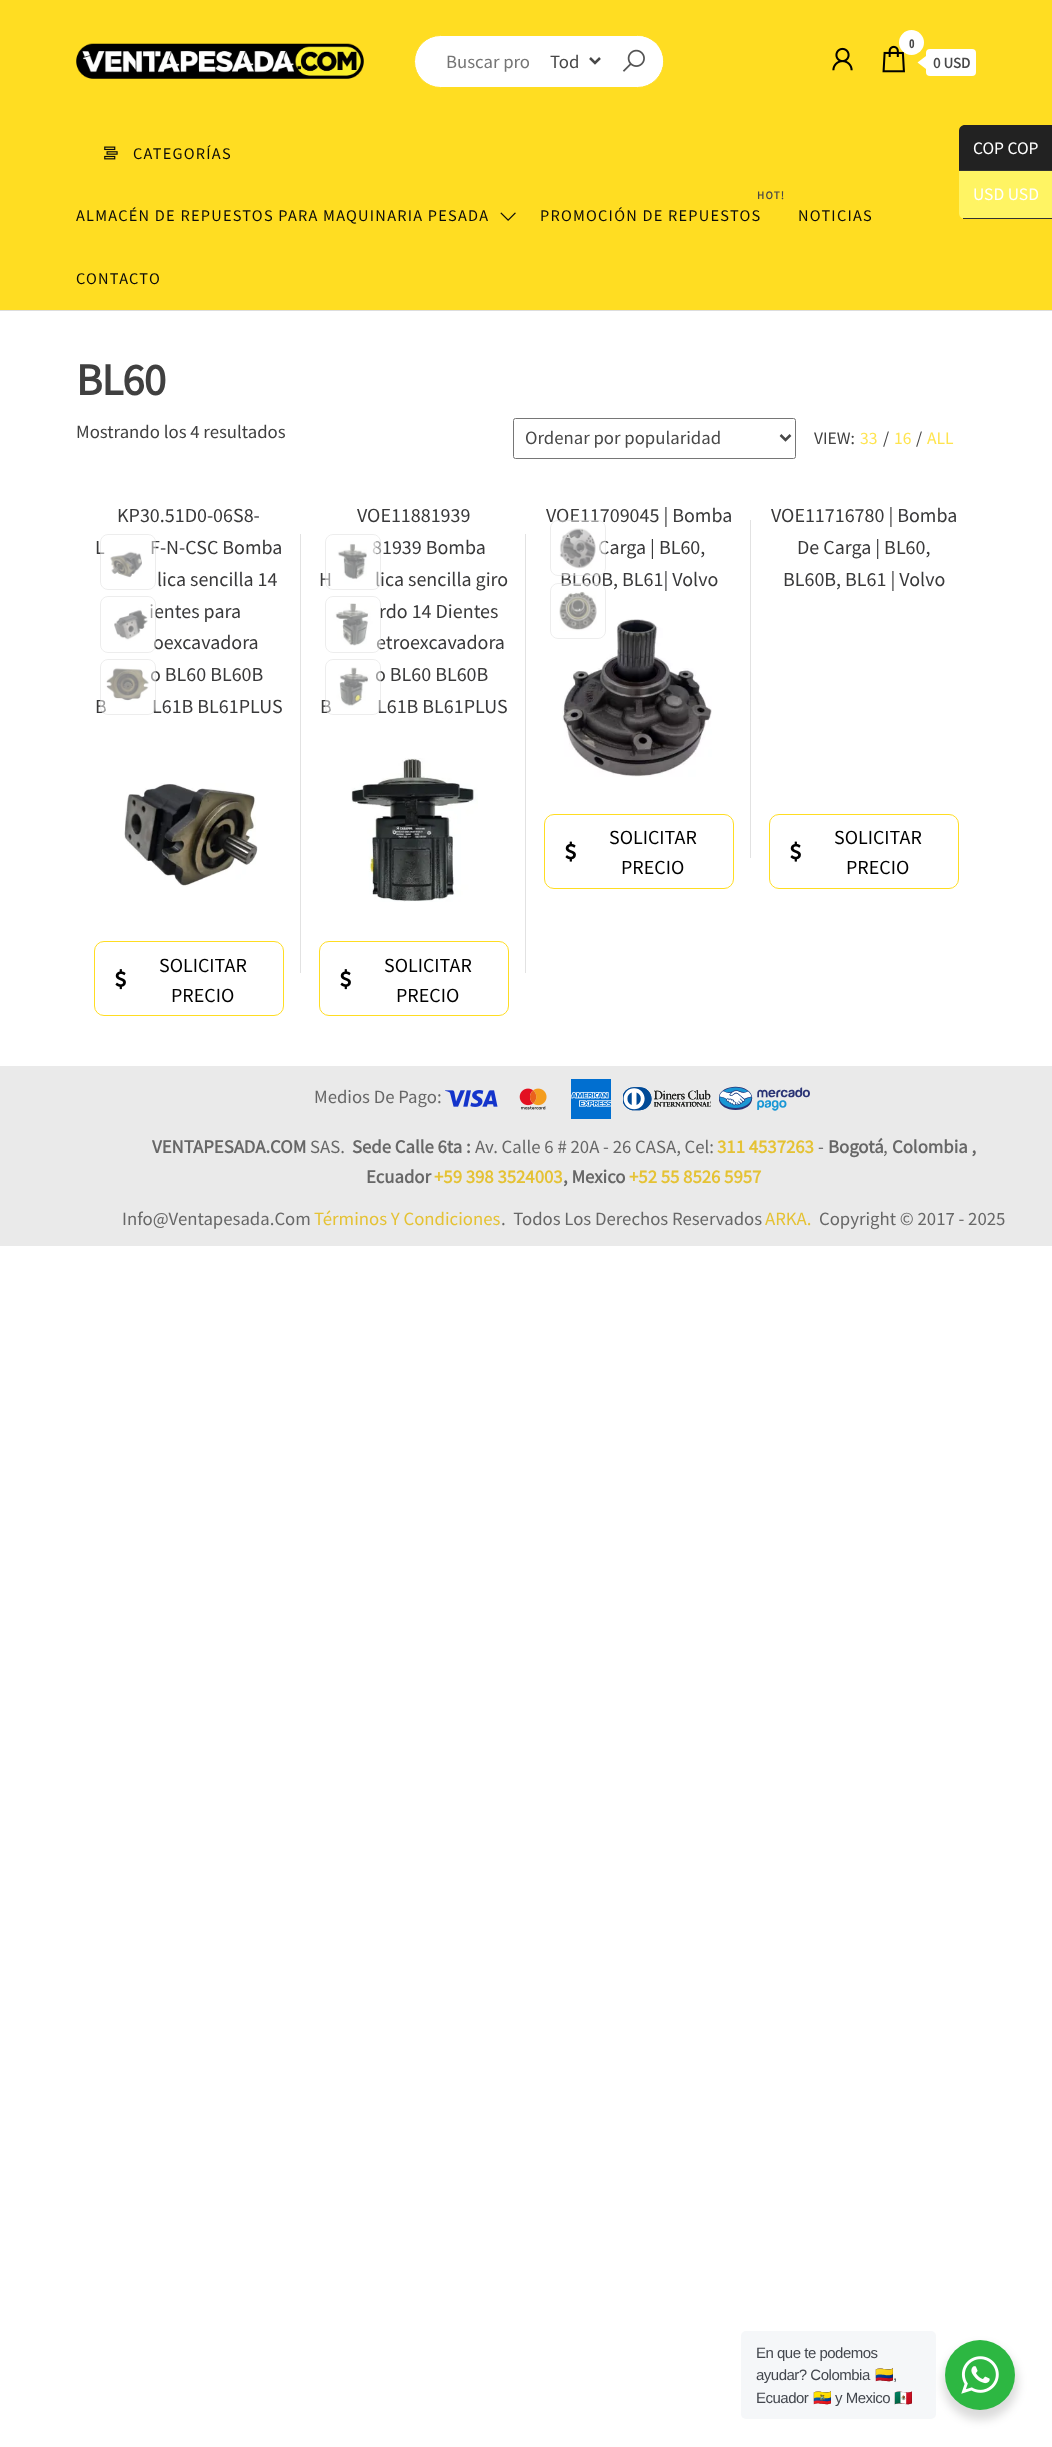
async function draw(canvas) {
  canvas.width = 1052
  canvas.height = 2447
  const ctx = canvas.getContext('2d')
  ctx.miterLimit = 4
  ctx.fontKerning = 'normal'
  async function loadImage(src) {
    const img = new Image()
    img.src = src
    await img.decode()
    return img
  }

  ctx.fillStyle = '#fff'
  ctx.fillRect(0, 0, 1052, 2447)
  ctx.fillStyle = '#fd2'
  ctx.fillRect(0, 0, 1052, 310)
  ctx.drawImage(await loadImage('image0.png'), 76, 43, 288, 36)
  ctx.fillStyle = '#fff'
  ctx.beginPath()
  ctx.roundRect(414.5, 35.5, 249, 52, 26)
  ctx.fill()
  ctx.strokeStyle = '#fd2'
  ctx.stroke()
  ctx.font = '18.75px Source Sans Pro'
  ctx.fillStyle = '#757575'
  ctx.fillText('Buscar pro', 446, 68)
  ctx.beginPath()
  ctx.moveTo(590, 58)
  ctx.lineTo(595, 63)
  ctx.lineTo(600, 58)
  ctx.strokeStyle = '#484848'
  ctx.lineWidth = 2.5
  ctx.stroke()
  ctx.fillStyle = '#484848'
  ctx.fillText('Tod', 550, 68)
  ctx.fillStyle = '#fff'
  ctx.beginPath()
  ctx.roundRect(605, 36, 58, 50, [0, 25, 25, 0])
  ctx.fill()
  ctx.drawImage(await loadImage('image1.png'), 622, 49, 23, 23)
  ctx.drawImage(await loadImage('image2.png'), 832, 47, 21, 24)
  ctx.drawImage(await loadImage('image3.png'), 882, 45, 23, 28)
  ctx.beginPath()
  ctx.arc(911.5, 42.5, 12.5, 0, 2 * Math.PI)
  ctx.fill()
  ctx.font = 'bold 12px Open Sans Condensed'
  ctx.fillStyle = '#484848'
  ctx.fillText('0', 909, 48)
  ctx.fillStyle = '#fff'
  ctx.beginPath()
  ctx.roundRect(926, 49, 50, 27, 4)
  ctx.fill()
  ctx.beginPath()
  ctx.moveTo(926, 56)
  ctx.lineTo(926, 69)
  ctx.lineTo(917.5, 62.5)
  ctx.closePath()
  ctx.fill()
  ctx.font = 'bold 15px Source Sans Pro'
  ctx.fillStyle = '#484848'
  ctx.fillText('0 USD', 933, 68)
  ctx.fillStyle = '#ddd'
  ctx.fillRect(0, 310, 1052, 1)
  ctx.drawImage(await loadImage('image4.png'), 104, 146, 14, 14)
  ctx.letterSpacing = '1.25px'
  ctx.font = '16.25px Source Sans Pro'
  ctx.fillStyle = '#0a0a0a'
  ctx.fillText('CATEGORÍAS', 133, 159)
  ctx.fillText('ALMACÉN DE REPUESTOS PARA MAQUINARIA PESADA', 76, 221)
  ctx.drawImage(await loadImage('image5.png'), 500, 212, 16, 9)
  ctx.font = 'bold 11px Source Sans Pro'
  ctx.fillStyle = '#484848'
  ctx.fillText('HOT!', 757, 199)
  ctx.font = '16.25px Source Sans Pro'
  ctx.fillStyle = '#0a0a0a'
  ctx.fillText('PROMOCIÓN DE REPUESTOS', 540, 221)
  ctx.fillText('NOTICIAS', 798, 221)
  ctx.fillText('CONTACTO', 76, 284)
  ctx.letterSpacing = '-1px'
  ctx.font = 'bold 45px Source Sans Pro'
  ctx.fillStyle = '#404040'
  ctx.fillText('BL60', 76, 395)
  ctx.letterSpacing = '0px'
  ctx.font = '18.75px Source Sans Pro'
  ctx.fillText('Mostrando los 4 resultados', 76, 438)
  ctx.beginPath()
  ctx.roundRect(513.5, 418.5, 282, 40, 2)
  ctx.strokeStyle = '#767676'
  ctx.lineWidth = 1
  ctx.stroke()
  ctx.beginPath()
  ctx.moveTo(780.5, 435)
  ctx.lineTo(785.5, 440)
  ctx.lineTo(790.5, 435)
  ctx.strokeStyle = '#484848'
  ctx.lineWidth = 2.5
  ctx.stroke()
  ctx.fillStyle = '#484848'
  ctx.fillText('Ordenar por popularidad', 525, 444)
  ctx.font = '17.5px Source Sans Pro'
  ctx.fillStyle = '#404040'
  ctx.fillText('VIEW:', 814, 444)
  ctx.fillStyle = '#ffe44e'
  ctx.fillText('33', 860, 444)
  ctx.fillStyle = '#404040'
  ctx.fillText('/', 883, 444)
  ctx.fillStyle = '#ffe44e'
  ctx.fillText('16', 894, 444)
  ctx.fillStyle = '#404040'
  ctx.fillText('/', 916, 444)
  ctx.fillStyle = '#ffe44e'
  ctx.fillText('ALL', 927, 444)
  ctx.font = '20px Source Sans Pro'
  ctx.fillStyle = '#39393a'
  ctx.fillText('KP30.51D0-06S8-', 117, 522)
  ctx.fillText('L', 95, 554)
  ctx.fillText('F-N-CSC Bomba', 150, 554)
  ctx.fillText('lica sencilla 14', 157, 586)
  ctx.fillText('ientes para', 149, 618)
  ctx.fillText('oexcavadora', 153, 649)
  ctx.fillText('o BL60 BL60B', 150, 681)
  ctx.fillText('B', 95, 713)
  ctx.fillText('L61B BL61PLUS', 152, 713)
  ctx.drawImage(await loadImage('image6.png'), 124, 783, 134, 104)
  ctx.fillStyle = '#ffffff80'
  ctx.beginPath()
  ctx.roundRect(100, 534, 56, 56, 8)
  ctx.fill()
  ctx.beginPath()
  ctx.roundRect(100.5, 534.5, 55, 55, 7.5)
  ctx.strokeStyle = '#00000012'
  ctx.lineWidth = 1
  ctx.stroke()
  ctx.drawImage(await loadImage('image7.png'), 105, 539, 46, 46)
  ctx.beginPath()
  ctx.roundRect(100, 596, 56, 57, 8)
  ctx.fill()
  ctx.beginPath()
  ctx.roundRect(100.5, 596.5, 55, 56, 7.5)
  ctx.stroke()
  ctx.drawImage(await loadImage('image8.png'), 114, 604, 37, 44)
  ctx.beginPath()
  ctx.roundRect(100, 659, 56, 56, 8)
  ctx.fill()
  ctx.beginPath()
  ctx.roundRect(100.5, 659.5, 55, 55, 7.5)
  ctx.stroke()
  ctx.drawImage(await loadImage('image9.png'), 105, 666, 46, 44)
  ctx.fillStyle = '#e2e2e2'
  ctx.fillRect(300, 534, 1, 439)
  ctx.beginPath()
  ctx.roundRect(94.5, 941.5, 189, 74, 9.5)
  ctx.strokeStyle = '#fd2'
  ctx.stroke()
  ctx.drawImage(await loadImage('image10.png'), 115, 969, 11, 21)
  ctx.fillStyle = '#000'
  ctx.fillText('SOLICITAR', 159, 972)
  ctx.fillText('PRECIO', 171, 1002)
  ctx.fillStyle = '#39393a'
  ctx.fillText('VOE11881939', 357, 522)
  ctx.fillText('81939 Bomba', 372, 554)
  ctx.fillText('H', 319, 586)
  ctx.fillText('lica sencilla giro', 375, 586)
  ctx.fillText('rdo 14 Dientes', 379, 618)
  ctx.fillText('etroexcavadora', 376, 649)
  ctx.fillText('o BL60 BL60B', 375, 681)
  ctx.fillText('B', 320, 713)
  ctx.fillText('L61B BL61PLUS', 377, 713)
  ctx.drawImage(await loadImage('image11.png'), 351, 758, 127, 144)
  ctx.fillStyle = '#ffffff80'
  ctx.beginPath()
  ctx.roundRect(325, 534, 56, 56, 8)
  ctx.fill()
  ctx.beginPath()
  ctx.roundRect(325.5, 534.5, 55, 55, 7.5)
  ctx.strokeStyle = '#00000012'
  ctx.stroke()
  ctx.drawImage(await loadImage('image12.png'), 330, 541, 46, 44)
  ctx.beginPath()
  ctx.roundRect(325, 596, 56, 57, 8)
  ctx.fill()
  ctx.beginPath()
  ctx.roundRect(325.5, 596.5, 55, 56, 7.5)
  ctx.stroke()
  ctx.drawImage(await loadImage('image13.png'), 330, 603, 46, 45)
  ctx.beginPath()
  ctx.roundRect(325, 659, 56, 56, 8)
  ctx.fill()
  ctx.beginPath()
  ctx.roundRect(325.5, 659.5, 55, 55, 7.5)
  ctx.stroke()
  ctx.drawImage(await loadImage('image14.png'), 330, 666, 46, 44)
  ctx.fillStyle = '#e2e2e2'
  ctx.fillRect(525, 534, 1, 439)
  ctx.beginPath()
  ctx.roundRect(319.5, 941.5, 189, 74, 9.5)
  ctx.strokeStyle = '#fd2'
  ctx.stroke()
  ctx.drawImage(await loadImage('image10.png'), 340, 969, 11, 21)
  ctx.fillStyle = '#000'
  ctx.fillText('SOLICITAR', 384, 972)
  ctx.fillText('PRECIO', 396, 1002)
  ctx.fillStyle = '#39393a'
  ctx.fillText('VOE11709045 | Bomba', 546, 522)
  ctx.fillText('Carga | BL60,', 598, 554)
  ctx.fillText('BL60B, BL61| Volvo', 560, 586)
  ctx.drawImage(await loadImage('image15.png'), 562, 619, 150, 158)
  ctx.fillStyle = '#ffffff80'
  ctx.beginPath()
  ctx.roundRect(550, 520, 56, 56, 8)
  ctx.fill()
  ctx.beginPath()
  ctx.roundRect(550.5, 520.5, 55, 55, 7.5)
  ctx.strokeStyle = '#00000012'
  ctx.stroke()
  ctx.drawImage(await loadImage('image16.png'), 559, 528, 42, 41)
  ctx.beginPath()
  ctx.roundRect(550, 583, 56, 56, 8)
  ctx.fill()
  ctx.beginPath()
  ctx.roundRect(550.5, 583.5, 55, 55, 7.5)
  ctx.stroke()
  ctx.drawImage(await loadImage('image17.png'), 559, 591, 38, 40)
  ctx.beginPath()
  ctx.roundRect(544.5, 814.5, 189, 74, 9.5)
  ctx.strokeStyle = '#fd2'
  ctx.stroke()
  ctx.drawImage(await loadImage('image18.png'), 565, 841, 11, 21)
  ctx.fillStyle = '#000'
  ctx.fillText('SOLICITAR', 609, 844)
  ctx.fillText('PRECIO', 621, 874)
  ctx.fillStyle = '#e2e2e2'
  ctx.fillRect(750, 520, 1, 338)
  ctx.fillStyle = '#39393a'
  ctx.fillText('VOE11716780 | Bomba', 771, 522)
  ctx.fillText('De Carga | BL60,', 797, 554)
  ctx.fillText('BL60B, BL61 | Volvo', 783, 586)
  ctx.beginPath()
  ctx.roundRect(769.5, 814.5, 189, 74, 9.5)
  ctx.stroke()
  ctx.drawImage(await loadImage('image18.png'), 790, 841, 11, 21)
  ctx.fillStyle = '#000'
  ctx.fillText('SOLICITAR', 834, 844)
  ctx.fillText('PRECIO', 846, 874)
  ctx.fillStyle = '#eaeaea'
  ctx.fillRect(0, 1066, 1052, 180)
  ctx.font = '18.75px Source Sans Pro'
  ctx.fillStyle = '#676767'
  ctx.fillText('Medios De Pago:', 314, 1103)
  ctx.drawImage(await loadImage('image19.png'), 445, 1090, 53, 17)
  ctx.drawImage(await loadImage('image20.png'), 519, 1088, 28, 22)
  ctx.drawImage(await loadImage('image21.png'), 571, 1079, 40, 40)
  ctx.drawImage(await loadImage('image22.png'), 623, 1087, 88, 24)
  ctx.drawImage(await loadImage('image23.png'), 719, 1086, 91, 25)
  ctx.font = 'bold 18.75px Source Sans Pro'
  ctx.fillText('VENTAPESADA.COM', 152, 1153)
  ctx.font = '18.75px Source Sans Pro'
  ctx.fillText('SAS.', 310, 1153)
  ctx.font = 'bold 18.75px Source Sans Pro'
  ctx.fillText('Sede Calle 6ta :', 352, 1153)
  ctx.font = '18.75px Source Sans Pro'
  ctx.fillText('Av. Calle 6 # 20A - 26 CASA, Cel:', 475, 1153)
  ctx.font = 'bold 18.75px Source Sans Pro'
  ctx.fillStyle = '#e5c234'
  ctx.fillText('311 4537263', 717, 1153)
  ctx.font = '18.75px Source Sans Pro'
  ctx.fillStyle = '#676767'
  ctx.fillText('-', 818, 1153)
  ctx.font = 'bold 18.75px Source Sans Pro'
  ctx.fillText('Bogotá', 828, 1153)
  ctx.fillText('Colombia ,', 892, 1153)
  ctx.font = '18.75px Source Sans Pro'
  ctx.fillText(',', 883, 1153)
  ctx.font = 'bold 18.75px Source Sans Pro'
  ctx.fillText('Ecuador', 366, 1183)
  ctx.fillStyle = '#e5c234'
  ctx.fillText('+59 398 3524003', 434, 1183)
  ctx.fillStyle = '#676767'
  ctx.fillText(', Mexico', 563, 1183)
  ctx.fillStyle = '#e5c234'
  ctx.fillText('+52 55 8526 5957', 629, 1183)
  ctx.font = '18.75px Source Sans Pro'
  ctx.fillStyle = '#676767'
  ctx.fillText('Info@Ventapesada.Com', 122, 1225)
  ctx.fillStyle = '#e5c234'
  ctx.fillText('Términos Y Condiciones', 314, 1225)
  ctx.fillStyle = '#676767'
  ctx.fillText('.  Todos Los Derechos Reservados', 501, 1225)
  ctx.fillStyle = '#e5c234'
  ctx.fillText('ARKA.', 765, 1225)
  ctx.fillStyle = '#676767'
  ctx.fillText('Copyright © 2017 - 2025', 819, 1225)
  ctx.fillStyle = '#222'
  ctx.beginPath()
  ctx.moveTo(965, 125)
  ctx.lineTo(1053, 125)
  ctx.lineTo(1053, 171)
  ctx.lineTo(959, 171)
  ctx.lineTo(959, 131)
  ctx.bezierCurveTo(959, 127.5, 961.5, 125, 965, 125)
  ctx.closePath()
  ctx.fill()
  ctx.fillStyle = '#333'
  ctx.fillRect(959, 170, 93, 1)
  ctx.font = '17.5px Source Sans Pro'
  ctx.fillStyle = '#fff'
  ctx.fillText('COP COP', 973, 154)
  ctx.fillStyle = '#fff463'
  ctx.beginPath()
  ctx.moveTo(959, 171)
  ctx.lineTo(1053, 171)
  ctx.lineTo(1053, 219)
  ctx.lineTo(965, 219)
  ctx.bezierCurveTo(961.5, 219, 959, 216.5, 959, 213)
  ctx.closePath()
  ctx.fill()
  ctx.fillStyle = '#333'
  ctx.fillRect(963, 218, 89, 1)
  ctx.fillStyle = '#fff'
  ctx.fillText('USD USD', 973, 200)
  ctx.fillStyle = '#00000024'
  ctx.filter = 'blur(5px)'
  ctx.beginPath()
  ctx.roundRect(943, 2345, 75, 75, 37.5)
  ctx.fill()
  ctx.filter = 'none'
  ctx.fillStyle = '#f5f7f9'
  ctx.beginPath()
  ctx.roundRect(741, 2331, 195, 88, 5)
  ctx.fill()
  ctx.letterSpacing = '-0.5px'
  ctx.font = '15px Liberation Sans'
  ctx.fillStyle = '#43474e'
  ctx.fillText('En que te podemos', 756, 2358)
  ctx.fillText('ayudar? Colombia', 756, 2380)
  ctx.font = '15px Noto Color Emoji'
  ctx.fillText('🇨🇴', 875, 2380)
  ctx.font = '15px Liberation Sans'
  ctx.fillText(',', 893, 2380)
  ctx.fillText('Ecuador', 756, 2403)
  ctx.font = '15px Noto Color Emoji'
  ctx.fillText('🇪🇨', 813, 2403)
  ctx.font = '15px Liberation Sans'
  ctx.fillText('y Mexico', 835, 2403)
  ctx.font = '15px Noto Color Emoji'
  ctx.fillText('🇲🇽', 894, 2403)
  ctx.fillStyle = '#2db742'
  ctx.beginPath()
  ctx.arc(980, 2375, 35, 0, 2 * Math.PI)
  ctx.fill()
  ctx.drawImage(await loadImage('image24.png'), 961, 2356, 38, 38)
}

draw(document.querySelector('canvas'))
